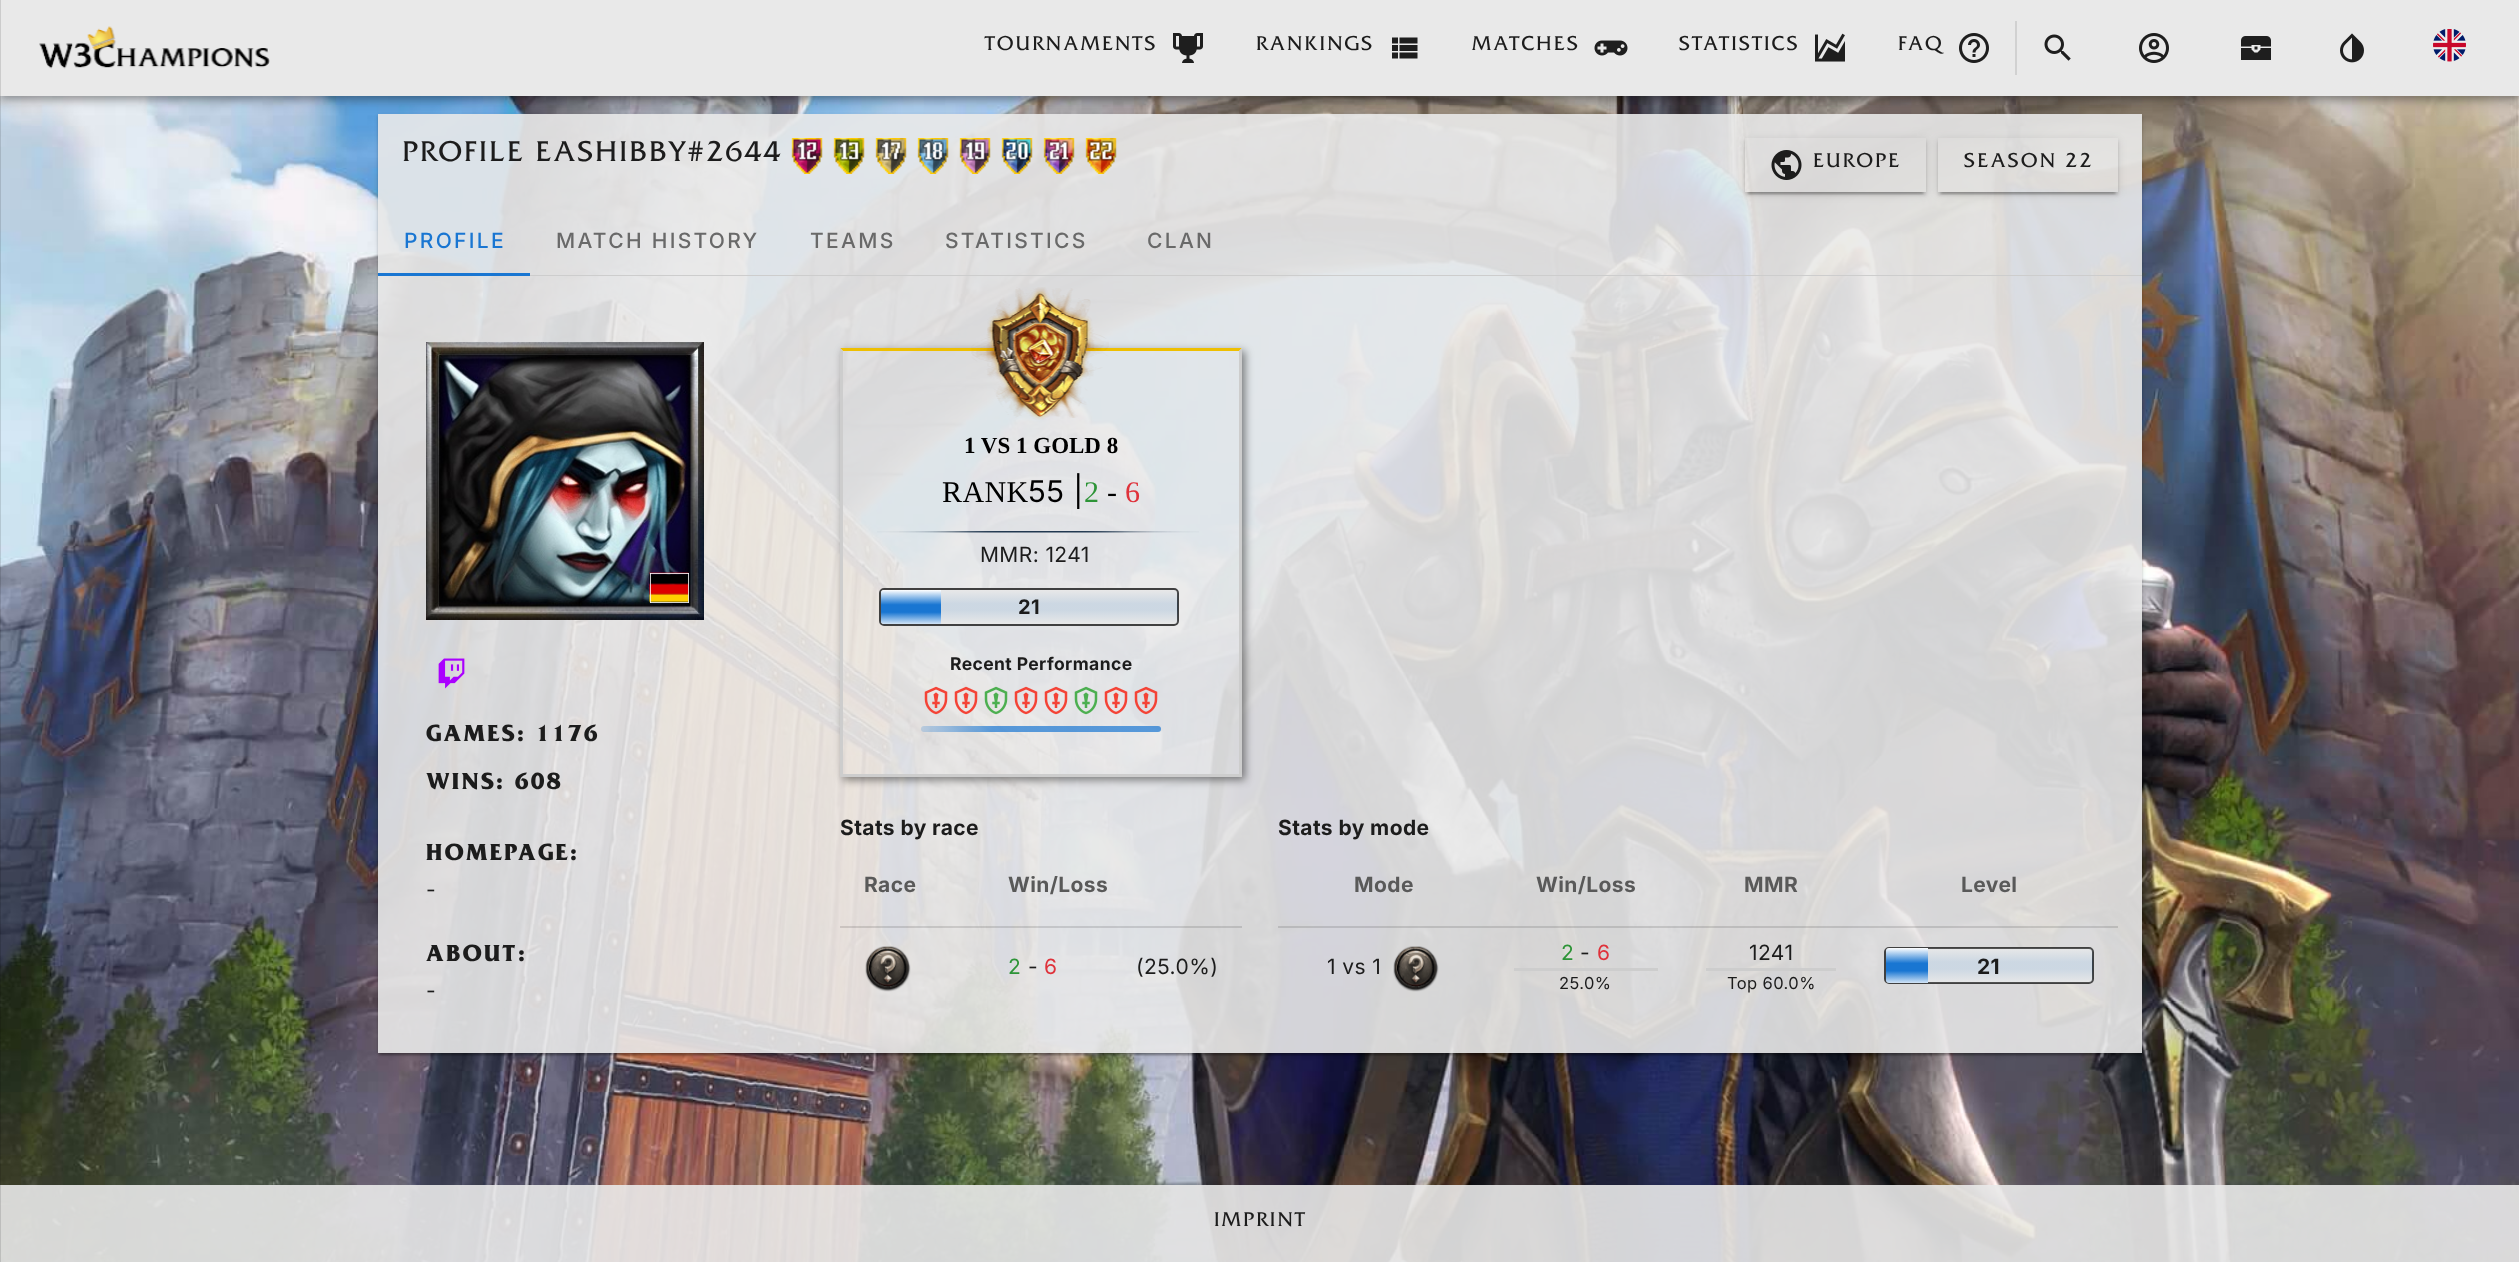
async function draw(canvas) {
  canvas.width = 2519
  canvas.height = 1262
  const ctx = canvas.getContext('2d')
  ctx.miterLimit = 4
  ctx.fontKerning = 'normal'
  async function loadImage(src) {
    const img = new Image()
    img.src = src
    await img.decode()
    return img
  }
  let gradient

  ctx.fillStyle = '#fff'
  ctx.fillRect(0, 0, 2519, 1262)
  ctx.drawImage(await loadImage('image0.png'), 0, 96, 2519, 1166)
  ctx.save()
  ctx.beginPath()
  ctx.moveTo(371, 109)
  ctx.lineTo(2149, 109)
  ctx.lineTo(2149, 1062)
  ctx.lineTo(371, 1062)
  ctx.closePath()
  ctx.moveTo(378, 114)
  ctx.lineTo(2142, 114)
  ctx.lineTo(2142, 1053)
  ctx.lineTo(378, 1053)
  ctx.closePath()
  ctx.clip('evenodd')
  ctx.fillStyle = '#0000001f'
  ctx.filter = 'blur(2px)'
  ctx.beginPath()
  ctx.rect(378, 116, 1764, 939)
  ctx.fill()
  ctx.filter = 'none'
  ctx.restore()
  ctx.save()
  ctx.beginPath()
  ctx.moveTo(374, 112)
  ctx.lineTo(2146, 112)
  ctx.lineTo(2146, 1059)
  ctx.lineTo(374, 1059)
  ctx.closePath()
  ctx.moveTo(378, 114)
  ctx.lineTo(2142, 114)
  ctx.lineTo(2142, 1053)
  ctx.lineTo(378, 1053)
  ctx.closePath()
  ctx.clip('evenodd')
  ctx.fillStyle = '#00000024'
  ctx.filter = 'blur(1px)'
  ctx.beginPath()
  ctx.rect(378, 116, 1764, 939)
  ctx.fill()
  ctx.filter = 'none'
  ctx.restore()
  ctx.save()
  ctx.beginPath()
  ctx.rect(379, 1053, 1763, 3)
  ctx.clip()
  ctx.fillStyle = '#00000033'
  ctx.filter = 'blur(1px)'
  ctx.beginPath()
  ctx.rect(380, 119, 1761, 936)
  ctx.fill()
  ctx.filter = 'none'
  ctx.restore()
  ctx.fillStyle = '#e9e9e9e6'
  ctx.fillRect(378, 114, 1764, 939)
  ctx.fillStyle = '#0000001f'
  ctx.filter = 'blur(7.5px)'
  ctx.beginPath()
  ctx.rect(0, 2, 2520, 96)
  ctx.fill()
  ctx.filter = 'none'
  ctx.fillStyle = '#00000024'
  ctx.filter = 'blur(4px)'
  ctx.beginPath()
  ctx.rect(0, 6, 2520, 96)
  ctx.fill()
  ctx.filter = 'none'
  ctx.fillStyle = '#00000033'
  ctx.filter = 'blur(3px)'
  ctx.beginPath()
  ctx.rect(2, 5, 2517, 93)
  ctx.fill()
  ctx.filter = 'none'
  ctx.fillStyle = '#e9e9e9'
  ctx.fillRect(0, 0, 2519, 96)
  ctx.fillStyle = '#e9e9e9e6'
  ctx.fillRect(0, 1185, 2519, 77)
  ctx.fillStyle = '#0000001f'
  ctx.fillRect(0, 0, 1, 1262)
  ctx.drawImage(await loadImage('image1.png'), 39, 26, 231, 43)
  ctx.letterSpacing = '2.3px'
  ctx.font = '500 21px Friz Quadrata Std'
  ctx.fillStyle = '#1c1c1c'
  ctx.fillText('TOURNAMENTS', 985, 50)
  ctx.drawImage(await loadImage('image2.png'), 1173, 33, 30, 30)
  ctx.fillText('RANKINGS', 1256, 50)
  ctx.drawImage(await loadImage('image3.png'), 1392, 37, 26, 22)
  ctx.fillText('MATCHES', 1472, 50)
  ctx.drawImage(await loadImage('image4.png'), 1594, 40, 34, 16)
  ctx.fillText('STATISTICS', 1679, 50)
  ctx.drawImage(await loadImage('image5.png'), 1815, 33, 30, 29)
  ctx.fillText('FAQ', 1898, 50)
  ctx.drawImage(await loadImage('image6.png'), 1959, 33, 30, 30)
  ctx.fillStyle = '#d1d1d1'
  ctx.fillRect(2015, 21, 2, 54)
  ctx.drawImage(await loadImage('image7.png'), 2044, 34, 27, 27)
  ctx.drawImage(await loadImage('image8.png'), 2139, 33, 30, 30)
  ctx.drawImage(await loadImage('image9.png'), 2241, 36, 30, 24)
  ctx.drawImage(await loadImage('image10.png'), 2340, 33, 24, 30)
  ctx.drawImage(await loadImage('image11.png'), 2433, 29, 33, 33)
  ctx.font = '500 30px Friz Quadrata Std'
  ctx.fillStyle = '#1c1c1c'
  ctx.fillText('PROFILE EASHIBBY#2644', 402, 161)
  ctx.drawImage(await loadImage('image12.png'), 791, 138, 32, 36)
  ctx.drawImage(await loadImage('image13.png'), 833, 138, 32, 36)
  ctx.drawImage(await loadImage('image14.png'), 875, 138, 32, 36)
  ctx.drawImage(await loadImage('image15.png'), 917, 138, 32, 36)
  ctx.drawImage(await loadImage('image16.png'), 959, 138, 32, 36)
  ctx.drawImage(await loadImage('image17.png'), 1001, 138, 32, 36)
  ctx.drawImage(await loadImage('image18.png'), 1043, 138, 32, 36)
  ctx.drawImage(await loadImage('image19.png'), 1085, 138, 32, 36)
  ctx.save()
  ctx.beginPath()
  ctx.moveTo(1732, 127)
  ctx.lineTo(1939, 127)
  ctx.lineTo(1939, 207)
  ctx.lineTo(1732, 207)
  ctx.closePath()
  ctx.moveTo(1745, 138)
  ctx.lineTo(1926, 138)
  ctx.lineTo(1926, 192)
  ctx.lineTo(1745, 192)
  ctx.closePath()
  ctx.clip('evenodd')
  ctx.fillStyle = '#0000001f'
  ctx.filter = 'blur(4px)'
  ctx.beginPath()
  ctx.rect(1745, 140, 181, 54)
  ctx.fill()
  ctx.filter = 'none'
  ctx.restore()
  ctx.save()
  ctx.beginPath()
  ctx.moveTo(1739, 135)
  ctx.lineTo(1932, 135)
  ctx.lineTo(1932, 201)
  ctx.lineTo(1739, 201)
  ctx.closePath()
  ctx.moveTo(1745, 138)
  ctx.lineTo(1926, 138)
  ctx.lineTo(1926, 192)
  ctx.lineTo(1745, 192)
  ctx.closePath()
  ctx.clip('evenodd')
  ctx.fillStyle = '#00000024'
  ctx.filter = 'blur(1.5px)'
  ctx.beginPath()
  ctx.rect(1745, 141, 181, 54)
  ctx.fill()
  ctx.filter = 'none'
  ctx.restore()
  ctx.save()
  ctx.beginPath()
  ctx.rect(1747, 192, 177, 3)
  ctx.clip()
  ctx.fillStyle = '#00000033'
  ctx.filter = 'blur(1px)'
  ctx.beginPath()
  ctx.rect(1748, 146, 175, 48)
  ctx.fill()
  ctx.filter = 'none'
  ctx.restore()
  ctx.drawImage(await loadImage('image20.png'), 1771, 150, 31, 30)
  ctx.font = '500 21px Friz Quadrata Std'
  ctx.fillText('EUROPE', 1813, 167)
  ctx.save()
  ctx.beginPath()
  ctx.moveTo(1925, 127)
  ctx.lineTo(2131, 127)
  ctx.lineTo(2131, 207)
  ctx.lineTo(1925, 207)
  ctx.closePath()
  ctx.moveTo(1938, 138)
  ctx.lineTo(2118, 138)
  ctx.lineTo(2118, 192)
  ctx.lineTo(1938, 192)
  ctx.closePath()
  ctx.clip('evenodd')
  ctx.fillStyle = '#0000001f'
  ctx.filter = 'blur(4px)'
  ctx.beginPath()
  ctx.rect(1938, 140, 180, 54)
  ctx.fill()
  ctx.filter = 'none'
  ctx.restore()
  ctx.save()
  ctx.beginPath()
  ctx.moveTo(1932, 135)
  ctx.lineTo(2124, 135)
  ctx.lineTo(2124, 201)
  ctx.lineTo(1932, 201)
  ctx.closePath()
  ctx.moveTo(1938, 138)
  ctx.lineTo(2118, 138)
  ctx.lineTo(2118, 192)
  ctx.lineTo(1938, 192)
  ctx.closePath()
  ctx.clip('evenodd')
  ctx.fillStyle = '#00000024'
  ctx.filter = 'blur(1.5px)'
  ctx.beginPath()
  ctx.rect(1938, 141, 180, 54)
  ctx.fill()
  ctx.filter = 'none'
  ctx.restore()
  ctx.save()
  ctx.beginPath()
  ctx.rect(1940, 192, 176, 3)
  ctx.clip()
  ctx.fillStyle = '#00000033'
  ctx.filter = 'blur(1px)'
  ctx.beginPath()
  ctx.rect(1941, 146, 174, 48)
  ctx.fill()
  ctx.filter = 'none'
  ctx.restore()
  ctx.fillText('SEASON 22', 1964, 167)
  ctx.fillStyle = '#cdcdcd'
  ctx.fillRect(530, 275, 1612, 1)
  ctx.font = '500 21px Inter'
  ctx.fillStyle = '#1976d2'
  ctx.fillText('PROFILE', 404, 248)
  ctx.fillRect(378, 273, 152, 3)
  ctx.fillStyle = '#696969'
  ctx.fillText('MATCH HISTORY', 556, 248)
  ctx.fillText('TEAMS', 810, 248)
  ctx.fillText('STATISTICS', 945, 248)
  ctx.fillText('CLAN', 1147, 248)
  ctx.drawImage(await loadImage('image21.png'), 426, 342, 278, 278)
  ctx.drawImage(await loadImage('image22.png'), 649, 572, 40, 31)
  ctx.strokeStyle = '#fff'
  ctx.lineWidth = 0.8
  ctx.strokeRect(650.4, 573.4, 38.2, 29.2)
  ctx.drawImage(await loadImage('image23.png'), 438, 658, 27, 31)
  ctx.font = 'bold 24.5px Friz Quadrata Std'
  ctx.fillStyle = '#1c1c1c'
  ctx.fillText('GAMES: 1176', 426, 741)
  ctx.fillText('WINS: 608', 426, 789)
  ctx.fillText('HOMEPAGE:', 426, 860)
  ctx.letterSpacing = '0.4px'
  ctx.font = '21px Inter'
  ctx.fillText('-', 426, 897)
  ctx.letterSpacing = '2.3px'
  ctx.font = 'bold 24.5px Friz Quadrata Std'
  ctx.fillText('ABOUT:', 426, 961)
  ctx.letterSpacing = '0.4px'
  ctx.font = '21px Inter'
  ctx.fillText('-', 426, 998)
  ctx.drawImage(await loadImage('image25.png'), 877, 531, 322, 2)
  ctx.save()
  ctx.beginPath()
  ctx.moveTo(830, 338)
  ctx.lineTo(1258, 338)
  ctx.lineTo(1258, 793)
  ctx.lineTo(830, 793)
  ctx.closePath()
  ctx.moveTo(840, 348)
  ctx.lineTo(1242, 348)
  ctx.lineTo(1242, 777)
  ctx.lineTo(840, 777)
  ctx.closePath()
  ctx.clip('evenodd')
  ctx.fillStyle = '#00000078'
  ctx.filter = 'blur(4px)'
  ctx.beginPath()
  ctx.rect(843, 351, 402, 429)
  ctx.fill()
  ctx.filter = 'none'
  ctx.restore()
  ctx.fillStyle = '#eebf01'
  ctx.beginPath()
  ctx.moveTo(840, 348)
  ctx.lineTo(1242, 348)
  ctx.lineTo(1239, 351)
  ctx.lineTo(843, 351)
  ctx.closePath()
  ctx.fill()
  ctx.drawImage(await loadImage('image24.png'), 971, 287, 138, 133)
  ctx.fillStyle = '#cdcdcd'
  ctx.beginPath()
  ctx.moveTo(1242, 348)
  ctx.lineTo(1242, 777)
  ctx.lineTo(1239, 774)
  ctx.lineTo(1239, 351)
  ctx.closePath()
  ctx.fill()
  ctx.fillRect(840, 774, 402, 3)
  ctx.beginPath()
  ctx.moveTo(840, 777)
  ctx.lineTo(840, 348)
  ctx.lineTo(843, 351)
  ctx.lineTo(843, 774)
  ctx.closePath()
  ctx.fill()
  ctx.letterSpacing = '0px'
  ctx.font = 'bold 23px Liberation Serif'
  ctx.fillStyle = '#000'
  ctx.fillText('1 VS 1 GOLD 8', 964, 453)
  ctx.letterSpacing = '0.4px'
  ctx.font = '30px Liberation Serif'
  ctx.fillText('RANK', 942, 502)
  ctx.font = '30px Inter'
  ctx.fillText('55 |', 1028, 502)
  ctx.font = '30px Liberation Serif'
  ctx.fillStyle = '#2d9437'
  ctx.fillText('2', 1084, 502)
  ctx.fillStyle = '#000'
  ctx.fillText('-', 1107, 502)
  ctx.fillStyle = '#df323b'
  ctx.fillText('6', 1125, 502)
  ctx.font = '21px Inter'
  ctx.fillStyle = '#1c1c1c'
  ctx.fillText('MMR: 1241', 980, 562)
  ctx.fillStyle = '#fff'
  ctx.beginPath()
  ctx.roundRect(879, 588, 300, 38, 5)
  ctx.fill()
  ctx.beginPath()
  ctx.roundRect(880, 589, 298, 36, 4)
  ctx.strokeStyle = '#000000bf'
  ctx.lineWidth = 2
  ctx.stroke()
  ctx.fillStyle = '#0000001a'
  ctx.beginPath()
  ctx.roundRect(881, 590, 297, 34, 3)
  ctx.fill()
  gradient = ctx.createLinearGradient(1029, 590, 1029, 624)
  gradient.addColorStop(0, '#ffffff1f')
  gradient.addColorStop(0.4, '#1976d21f')
  gradient.addColorStop(0.6, '#1976d21f')
  gradient.addColorStop(1, '#ffffff1f')
  ctx.fillStyle = gradient
  ctx.beginPath()
  ctx.roundRect(881, 590, 297, 34, 3)
  ctx.fill()
  gradient = ctx.createLinearGradient(911, 590, 911, 627)
  gradient.addColorStop(0, '#fff')
  gradient.addColorStop(0.4, '#1976d2')
  gradient.addColorStop(0.6, '#1976d2')
  gradient.addColorStop(1, '#fff')
  ctx.fillStyle = gradient
  ctx.beginPath()
  ctx.roundRect(881, 590, 60, 34, [3, 0, 0, 3])
  ctx.fill()
  ctx.font = 'bold 20px Inter'
  ctx.fillStyle = '#1c1c1c'
  ctx.fillText('21', 1018, 614)
  ctx.font = 'bold 17.5px Inter'
  ctx.fillText('Recent Performance', 950, 670)
  ctx.drawImage(await loadImage('image26.png'), 924, 686, 24, 29)
  ctx.drawImage(await loadImage('image27.png'), 954, 686, 24, 29)
  ctx.drawImage(await loadImage('image28.png'), 984, 686, 24, 29)
  ctx.drawImage(await loadImage('image29.png'), 1014, 686, 24, 29)
  ctx.drawImage(await loadImage('image30.png'), 1044, 686, 24, 29)
  ctx.drawImage(await loadImage('image31.png'), 1074, 686, 24, 29)
  ctx.drawImage(await loadImage('image32.png'), 1104, 686, 24, 29)
  ctx.drawImage(await loadImage('image33.png'), 1134, 686, 24, 29)
  gradient = ctx.createLinearGradient(1161, 729, 921, 729)
  gradient.addColorStop(0.7, '#1976d2b3')
  gradient.addColorStop(1, '#1976d233')
  ctx.fillStyle = gradient
  ctx.beginPath()
  ctx.roundRect(921, 726, 240, 6, 3)
  ctx.fill()
  ctx.font = 'bold 21px Inter'
  ctx.fillStyle = '#1c1c1c'
  ctx.fillText('Stats by race', 840, 835)
  ctx.fillStyle = '#0000001f'
  ctx.fillRect(840, 926, 144, 2)
  ctx.fillStyle = '#595959'
  ctx.fillText('Race', 864, 892)
  ctx.fillStyle = '#0000001f'
  ctx.fillRect(984, 926, 258, 2)
  ctx.fillStyle = '#595959'
  ctx.fillText('Win/Loss', 1008, 892)
  ctx.drawImage(await loadImage('image34.png'), 865, 946, 46, 46)
  ctx.font = '21px Inter'
  ctx.fillStyle = '#2d9437'
  ctx.fillText('2', 1008, 974)
  ctx.fillStyle = '#1c1c1c'
  ctx.fillText('-', 1028, 974)
  ctx.fillStyle = '#df323b'
  ctx.fillText('6', 1044, 974)
  ctx.fillStyle = '#1c1c1c'
  ctx.fillText('(25.0%)', 1136, 974)
  ctx.font = 'bold 21px Inter'
  ctx.fillText('Stats by mode', 1278, 835)
  ctx.fillStyle = '#0000001f'
  ctx.fillRect(1278, 926, 212, 2)
  ctx.fillStyle = '#595959'
  ctx.fillText('Mode', 1354, 892)
  ctx.fillStyle = '#0000001f'
  ctx.fillRect(1490, 926, 192, 2)
  ctx.fillStyle = '#595959'
  ctx.fillText('Win/Loss', 1536, 892)
  ctx.fillStyle = '#0000001f'
  ctx.fillRect(1682, 926, 178, 2)
  ctx.fillStyle = '#595959'
  ctx.fillText('MMR', 1744, 892)
  ctx.fillStyle = '#0000001f'
  ctx.fillRect(1860, 926, 258, 2)
  ctx.fillStyle = '#595959'
  ctx.fillText('Level', 1961, 892)
  ctx.font = '21px Inter'
  ctx.fillStyle = '#1c1c1c'
  ctx.fillText('1 vs 1', 1327, 974)
  ctx.drawImage(await loadImage('image35.png'), 1393, 946, 46, 46)
  ctx.fillStyle = '#2d9437'
  ctx.fillText('2', 1561, 960)
  ctx.fillStyle = '#1c1c1c'
  ctx.fillText('-', 1580, 960)
  ctx.fillStyle = '#df323b'
  ctx.fillText('6', 1597, 960)
  ctx.fillStyle = '#cdcdcd'
  ctx.fillRect(1514, 968, 144, 3)
  ctx.font = '16.5px Inter'
  ctx.fillStyle = '#1c1c1c'
  ctx.fillText('25.0%', 1559, 989)
  ctx.font = '21px Inter'
  ctx.fillText('1241', 1749, 960)
  ctx.fillStyle = '#cdcdcd'
  ctx.fillRect(1706, 968, 130, 3)
  ctx.font = '16.5px Inter'
  ctx.fillStyle = '#1c1c1c'
  ctx.fillText('Top 60.0%', 1727, 989)
  ctx.fillStyle = '#fff'
  ctx.beginPath()
  ctx.roundRect(1884, 947, 210, 37, 5)
  ctx.fill()
  ctx.beginPath()
  ctx.roundRect(1885, 948, 208, 35, 4)
  ctx.stroke()
  ctx.fillStyle = '#0000001a'
  ctx.beginPath()
  ctx.roundRect(1886, 948, 207, 35, 3)
  ctx.fill()
  gradient = ctx.createLinearGradient(1989, 948, 1989, 983)
  gradient.addColorStop(0, '#ffffff1f')
  gradient.addColorStop(0.4, '#1976d21f')
  gradient.addColorStop(0.6, '#1976d21f')
  gradient.addColorStop(1, '#ffffff1f')
  ctx.fillStyle = gradient
  ctx.beginPath()
  ctx.roundRect(1886, 948, 207, 35, 3)
  ctx.fill()
  gradient = ctx.createLinearGradient(1907, 948, 1907, 986)
  gradient.addColorStop(0, '#fff')
  gradient.addColorStop(0.4, '#1976d2')
  gradient.addColorStop(0.6, '#1976d2')
  gradient.addColorStop(1, '#fff')
  ctx.fillStyle = gradient
  ctx.beginPath()
  ctx.roundRect(1886, 948, 42, 35, [3, 0, 0, 3])
  ctx.fill()
  ctx.font = 'bold 21px Inter'
  ctx.fillStyle = '#1c1c1c'
  ctx.fillText('21', 1977, 974)
  ctx.letterSpacing = '2.3px'
  ctx.font = '500 21px Friz Quadrata Std'
  ctx.fillText('IMPRINT', 1214, 1226)
}

draw(document.querySelector('canvas'))
